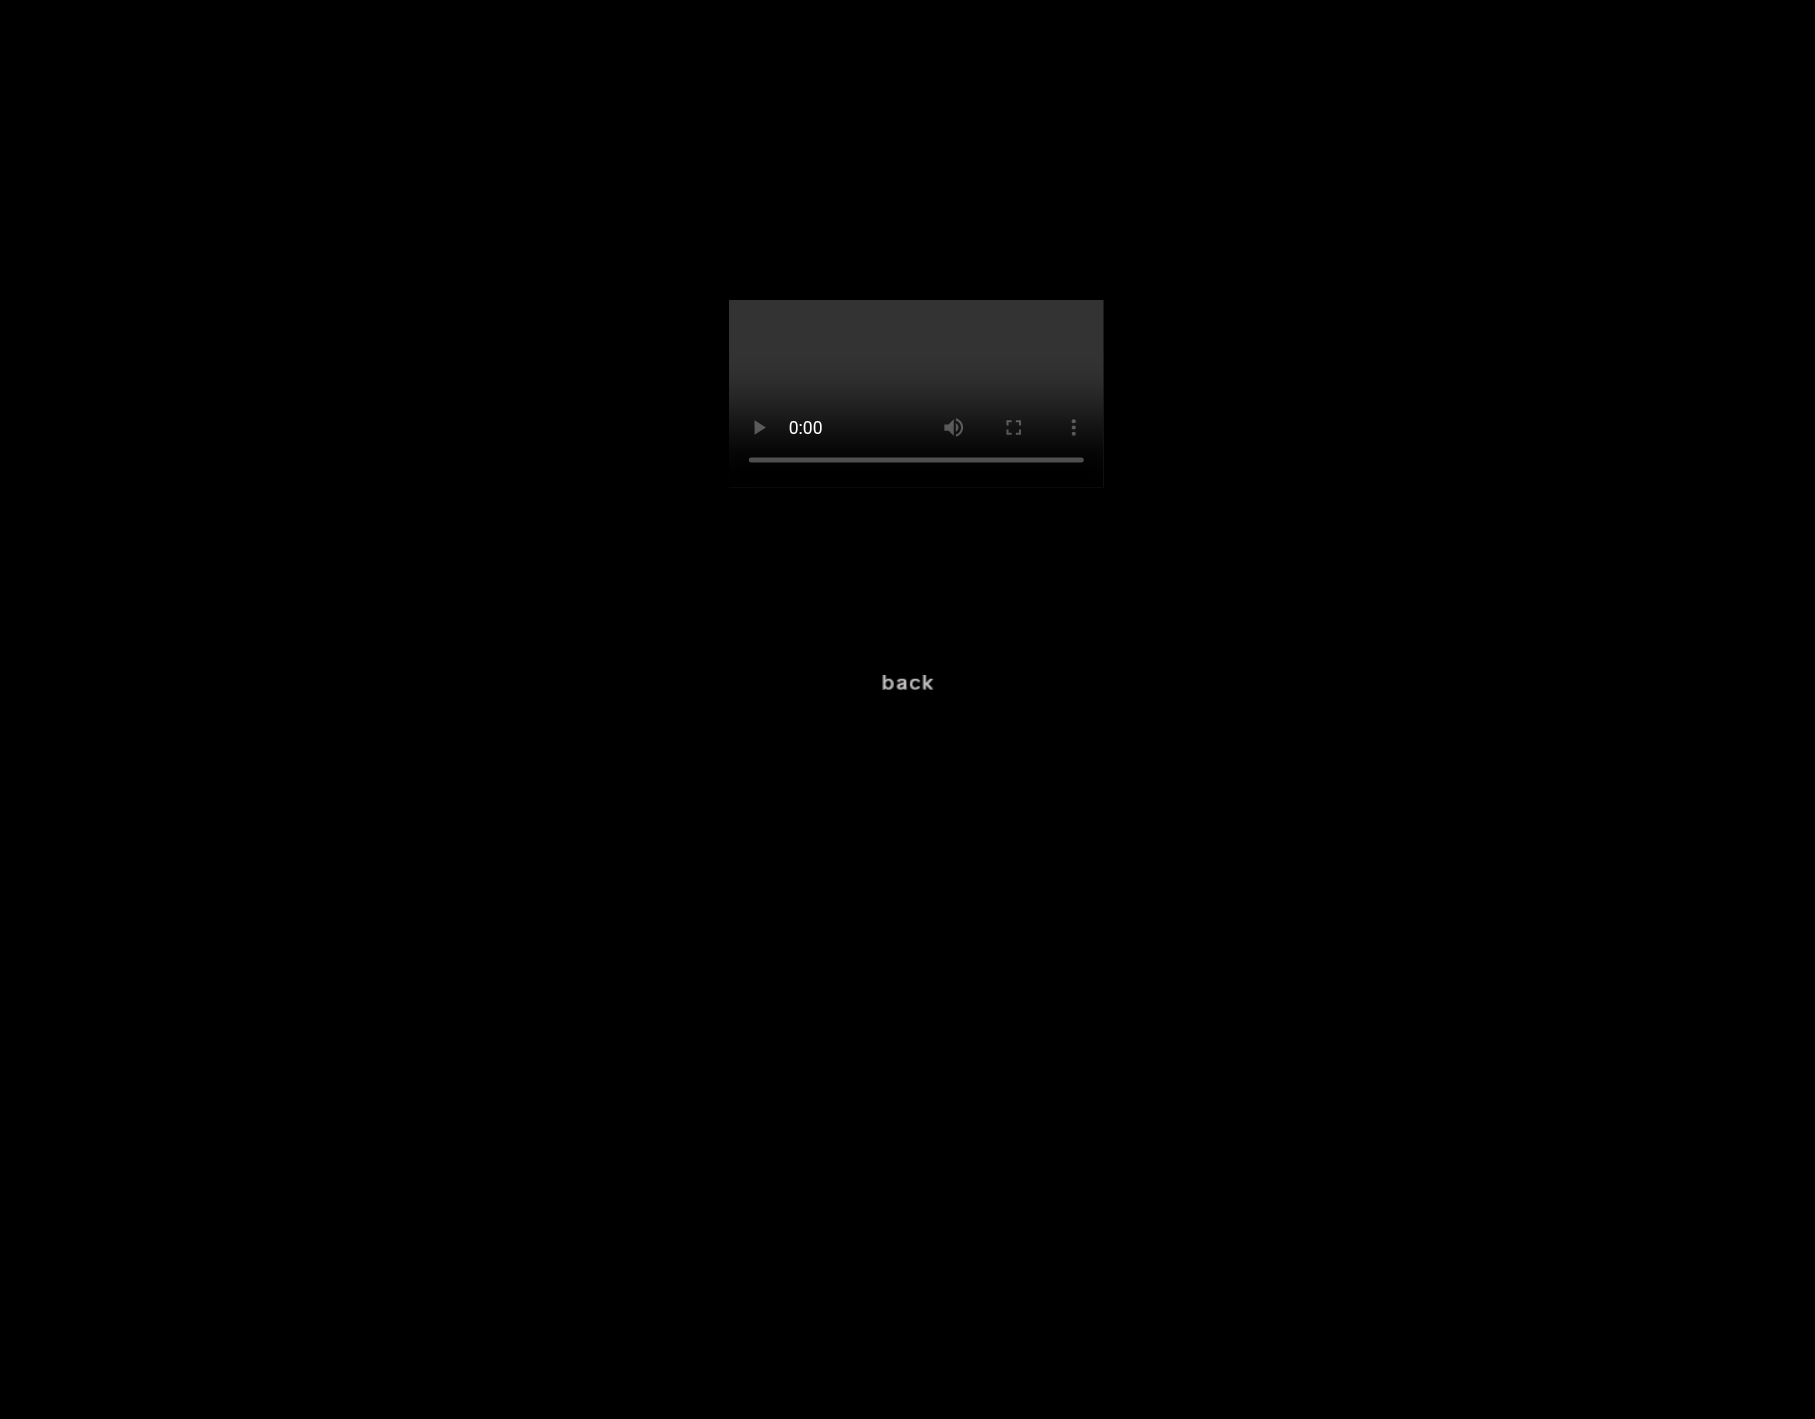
async function draw(canvas) {
  canvas.width = 1815
  canvas.height = 1419
  const ctx = canvas.getContext('2d')
  ctx.miterLimit = 4
  ctx.fontKerning = 'normal'
  async function loadImage(src) {
    const img = new Image()
    img.src = src
    await img.decode()
    return img
  }

  ctx.fillStyle = '#000'
  ctx.fillRect(0, 0, 1815, 1419)
  ctx.drawImage(await loadImage('image0.png'), 729, 300, 375, 188)
  ctx.drawImage(await loadImage('image1.png'), 882, 675, 52, 15)
}

draw(document.querySelector('canvas'))
